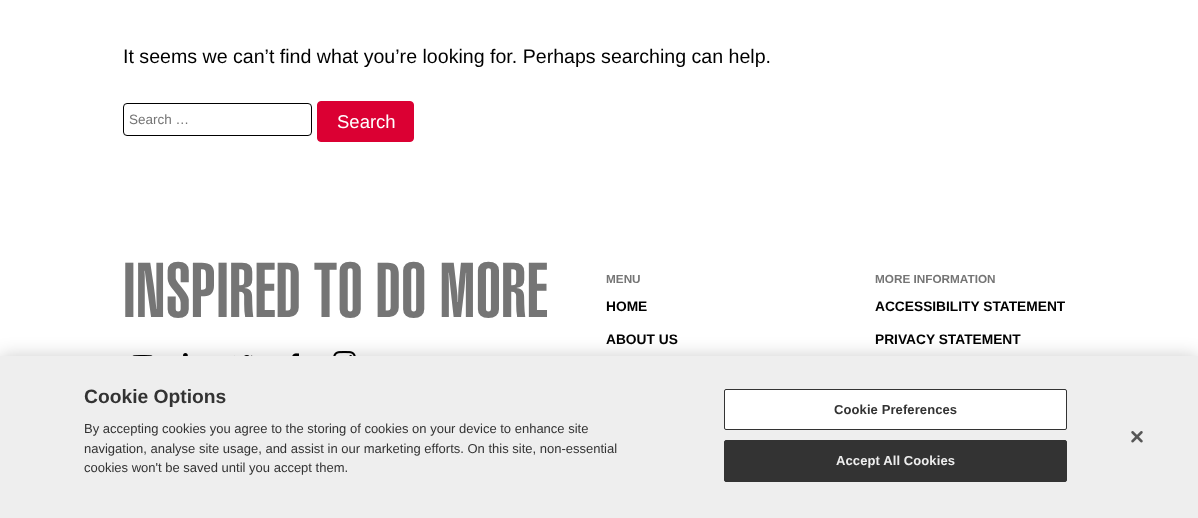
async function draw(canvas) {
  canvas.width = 1198
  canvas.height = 518
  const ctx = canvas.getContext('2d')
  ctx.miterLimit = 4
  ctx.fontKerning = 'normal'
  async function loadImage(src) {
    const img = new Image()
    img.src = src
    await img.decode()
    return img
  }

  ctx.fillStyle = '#fff'
  ctx.fillRect(0, 0, 1198, 518)
  ctx.font = '19.6px Liberation Sans'
  ctx.fillStyle = '#000'
  ctx.fillText('It seems we can’t find what you’re looking for. Perhaps searching can help.', 123, 63)
  ctx.beginPath()
  ctx.roundRect(123.5, 103.5, 188, 32, 3.5)
  ctx.strokeStyle = '#000'
  ctx.stroke()
  ctx.font = '13.5px Liberation Sans'
  ctx.fillStyle = '#757575'
  ctx.fillText('Search …', 129, 124)
  ctx.fillStyle = '#db0033'
  ctx.beginPath()
  ctx.roundRect(317.5, 101.5, 96, 40, 3.5)
  ctx.fill()
  ctx.strokeStyle = '#db0033'
  ctx.stroke()
  ctx.font = '18.5px Liberation Sans'
  ctx.fillStyle = '#fff'
  ctx.fillText('Search', 337, 128)
  ctx.font = '76.25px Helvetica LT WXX'
  ctx.fillStyle = '#757575'
  ctx.fillText('INSPIRED TO DO MORE', 123, 317)
  ctx.drawImage(await loadImage('image0.png'), 132, 355, 21, 1)
  ctx.drawImage(await loadImage('image1.png'), 183, 353, 5, 3)
  ctx.drawImage(await loadImage('image2.png'), 234, 355, 19, 1)
  ctx.drawImage(await loadImage('image3.png'), 292, 353, 7, 3)
  ctx.drawImage(await loadImage('image4.png'), 333, 351, 23, 5)
  ctx.font = 'bold 11.75px Liberation Sans'
  ctx.fillText('MENU', 606, 283)
  ctx.font = 'bold 13.75px Liberation Sans'
  ctx.fillStyle = '#000'
  ctx.fillText('HOME', 606, 311)
  ctx.fillText('ABOUT US', 606, 344)
  ctx.font = 'bold 11.75px Liberation Sans'
  ctx.fillStyle = '#757575'
  ctx.fillText('MORE INFORMATION', 875, 283)
  ctx.font = 'bold 13.75px Liberation Sans'
  ctx.fillStyle = '#000'
  ctx.fillText('ACCESSIBILITY STATEMENT', 875, 311)
  ctx.fillText('PRIVACY STATEMENT', 875, 344)
  ctx.fillStyle = '#00000033'
  ctx.filter = 'blur(9px)'
  ctx.beginPath()
  ctx.rect(0, 356, 1198, 162)
  ctx.fill()
  ctx.filter = 'none'
  ctx.fillStyle = '#eee'
  ctx.fillRect(0, 356, 1198, 162)
  ctx.font = 'bold 19.25px Liberation Sans'
  ctx.fillStyle = '#333'
  ctx.fillText('Cookie Options', 84, 403)
  ctx.font = '13px Liberation Sans'
  ctx.fillText('By accepting cookies you agree to the storing of cookies on your device to enhance site', 84, 433)
  ctx.fillText('navigation, analyse site usage, and assist in our marketing efforts. On this site, non-essential', 84, 453)
  ctx.fillText('cookies won\'t be saved until you accept them.', 84, 472)
  ctx.fillStyle = '#fff'
  ctx.beginPath()
  ctx.roundRect(724.5, 389.5, 342, 40, 1.5)
  ctx.fill()
  ctx.strokeStyle = '#333'
  ctx.stroke()
  ctx.letterSpacing = '0.1px'
  ctx.font = 'bold 13px Liberation Sans'
  ctx.fillStyle = '#333'
  ctx.fillText('Cookie Preferences', 834, 414)
  ctx.beginPath()
  ctx.roundRect(724.5, 440.5, 342, 41, 1.5)
  ctx.fill()
  ctx.stroke()
  ctx.fillStyle = '#eee'
  ctx.fillText('Accept All Cookies', 836, 465)
  ctx.drawImage(await loadImage('image5.png'), 1131, 431, 12, 12)
}

draw(document.querySelector('canvas'))
